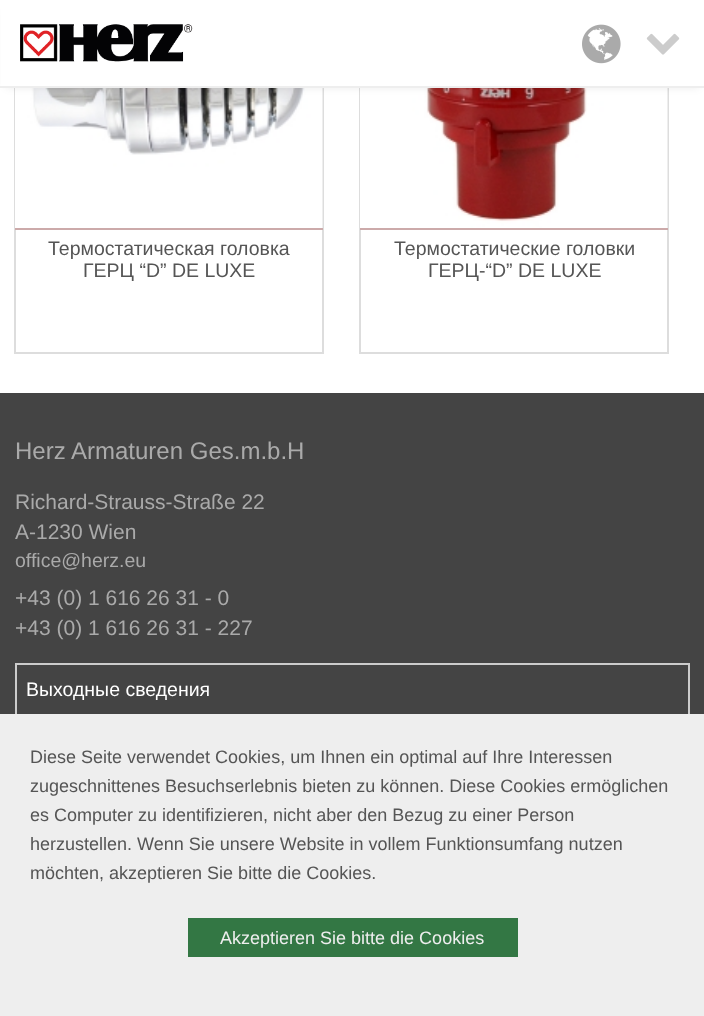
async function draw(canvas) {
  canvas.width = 704
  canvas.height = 1016
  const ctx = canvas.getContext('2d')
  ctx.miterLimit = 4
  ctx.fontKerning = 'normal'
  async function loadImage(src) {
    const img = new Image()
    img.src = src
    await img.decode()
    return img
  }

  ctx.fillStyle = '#fff'
  ctx.fillRect(0, 0, 704, 1016)
  ctx.strokeStyle = '#ddd'
  ctx.lineWidth = 2
  ctx.strokeRect(15, -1, 308, 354)
  ctx.drawImage(await loadImage('image3.png'), 15, 88, 308, 140)
  ctx.strokeRect(360, -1, 308, 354)
  ctx.drawImage(await loadImage('image4.png'), 360, 88, 308, 140)
  ctx.fillStyle = '#00000017'
  ctx.filter = 'blur(4px)'
  ctx.beginPath()
  ctx.rect(6, 12, 693, 75)
  ctx.fill()
  ctx.filter = 'none'
  ctx.fillStyle = '#fff'
  ctx.fillRect(1, 0, 703, 86)
  ctx.fillStyle = '#eee'
  ctx.fillRect(0, 86, 704, 2)
  ctx.drawImage(await loadImage('image0.png'), 20, 24, 173, 38)
  ctx.drawImage(await loadImage('image1.png'), 582, 24, 39, 40)
  ctx.drawImage(await loadImage('image2.png'), 646, 33, 34, 22)
  ctx.fillStyle = '#caa'
  ctx.fillRect(15, 228, 308, 2)
  ctx.font = '19.5px Liberation Sans'
  ctx.fillStyle = '#555'
  ctx.fillText('Термостатическая головка', 48, 255)
  ctx.fillText('ГЕРЦ “D” DE LUXE', 83, 277)
  ctx.fillStyle = '#caa'
  ctx.fillRect(360, 228, 308, 2)
  ctx.fillStyle = '#555'
  ctx.fillText('Термостатические головки', 394, 255)
  ctx.fillText('ГЕРЦ-“D” DE LUXE', 428, 277)
  ctx.fillStyle = '#444'
  ctx.fillRect(0, 393, 704, 321)
  ctx.font = '24px Liberation Sans'
  ctx.fillStyle = '#aaa'
  ctx.fillText('Herz Armaturen Ges.m.b.H', 15, 459)
  ctx.font = '21px Liberation Sans'
  ctx.fillText('Richard-Strauss-Straße 22', 15, 509)
  ctx.fillText('A-1230 Wien', 15, 539)
  ctx.font = '19.5px Liberation Sans'
  ctx.fillText('office@herz.eu', 15, 567)
  ctx.font = '21px Liberation Sans'
  ctx.fillText('+43 (0) 1 616 26 31 - 0', 15, 605)
  ctx.fillText('+43 (0) 1 616 26 31 - 227', 15, 635)
  ctx.strokeStyle = '#ccc'
  ctx.strokeRect(16, 664, 673, 51)
  ctx.font = '19.5px Liberation Sans'
  ctx.fillStyle = '#fff'
  ctx.fillText('Выходные сведения', 26, 696)
  ctx.fillStyle = '#eee'
  ctx.fillRect(0, 714, 704, 302)
  ctx.font = '18px Liberation Sans'
  ctx.fillStyle = '#555'
  ctx.fillText('Diese Seite verwendet Cookies, um Ihnen ein optimal auf Ihre Interessen', 30, 763)
  ctx.fillText('zugeschnittenes Besuchserlebnis bieten zu können. Diese Cookies ermöglichen', 30, 792)
  ctx.fillText('es Computer zu identifizieren, nicht aber den Bezug zu einer Person', 30, 821)
  ctx.fillText('herzustellen. Wenn Sie unsere Website in vollem Funktionsumfang nutzen', 30, 850)
  ctx.fillText('möchten, akzeptieren Sie bitte die Cookies.', 30, 879)
  ctx.fillStyle = '#374'
  ctx.fillRect(188, 918, 330, 39)
  ctx.fillStyle = '#eee'
  ctx.fillText('Akzeptieren Sie bitte die Cookies', 220, 944)
}

draw(document.querySelector('canvas'))
